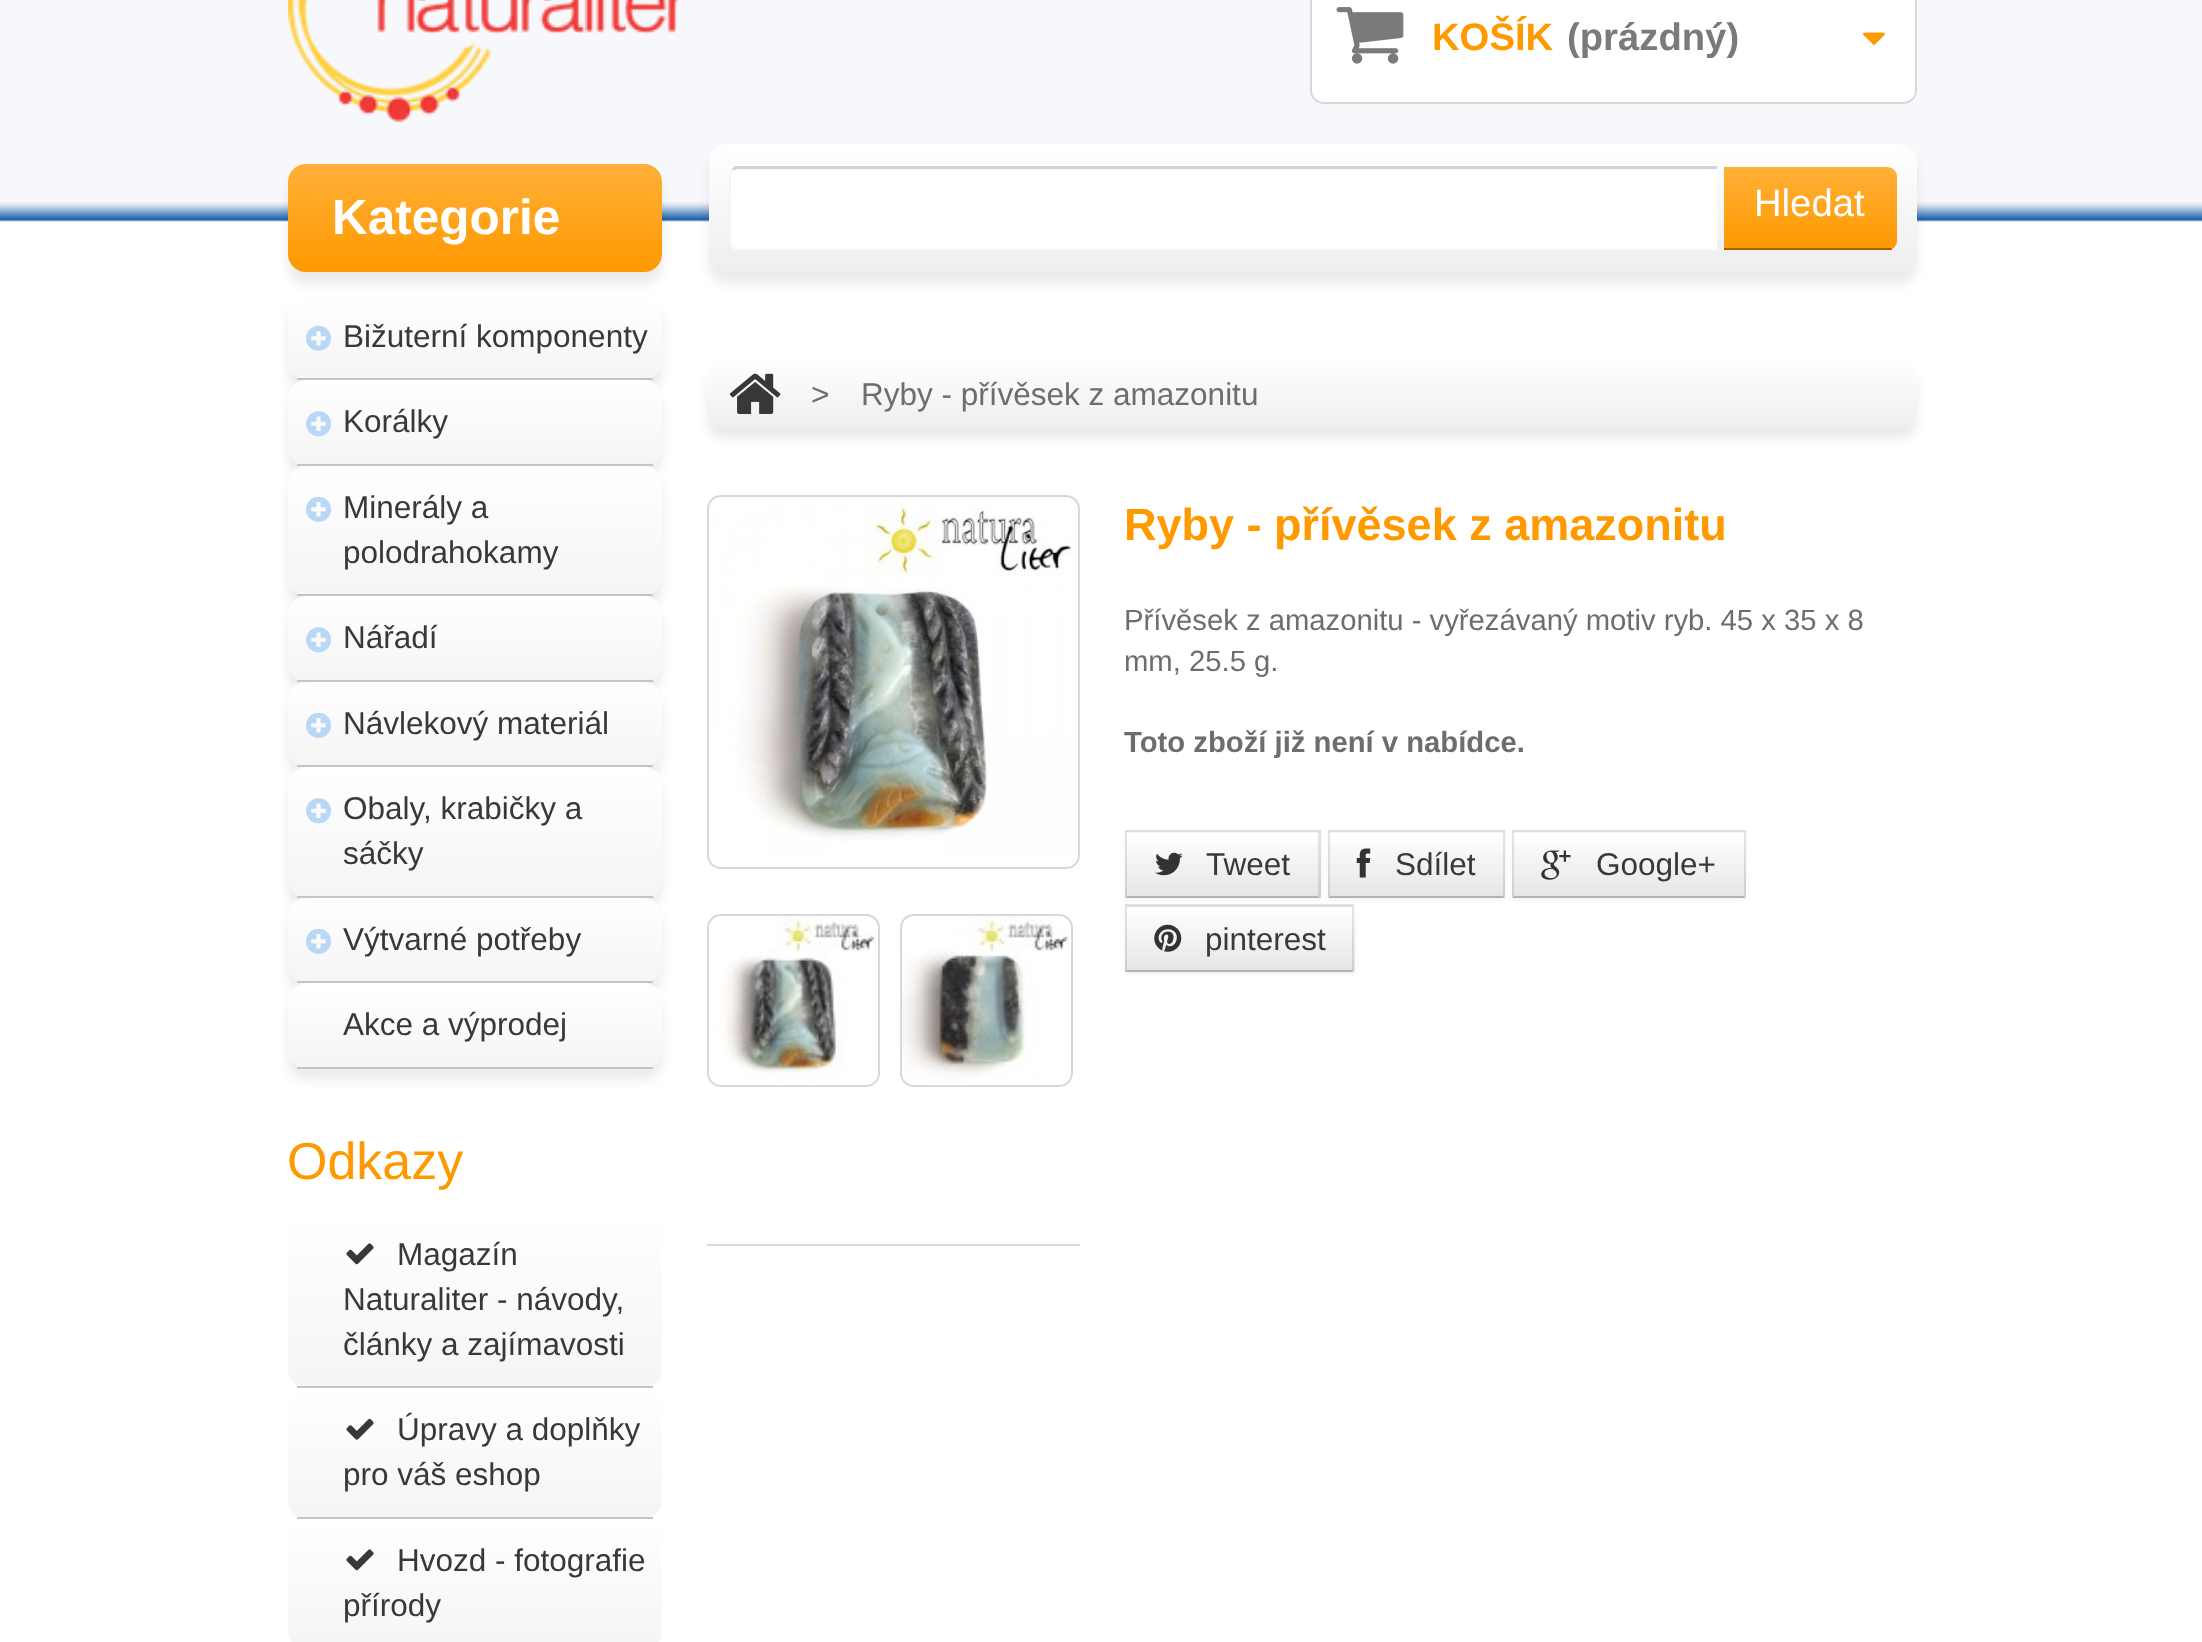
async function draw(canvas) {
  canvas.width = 2202
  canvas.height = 1642
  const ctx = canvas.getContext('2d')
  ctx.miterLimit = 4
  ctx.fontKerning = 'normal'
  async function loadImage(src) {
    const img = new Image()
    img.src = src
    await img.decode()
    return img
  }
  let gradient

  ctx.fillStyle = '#fff'
  ctx.fillRect(0, 0, 2202, 1642)
  ctx.drawImage(await loadImage('image0.png'), 0, 0, 2202, 222)
  ctx.drawImage(await loadImage('image1.png'), 288, 0, 390, 122)
  ctx.beginPath()
  ctx.roundRect(1311, -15, 605, 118, 13)
  ctx.fill()
  ctx.strokeStyle = '#d8d8d8'
  ctx.lineWidth = 2
  ctx.stroke()
  ctx.drawImage(await loadImage('image2.png'), 1336, 7, 68, 57)
  ctx.font = 'bold 38.25px Liberation Sans'
  ctx.fillStyle = '#f90'
  ctx.fillText('KOŠÍK', 1432, 50)
  ctx.fillStyle = '#7a7a7a'
  ctx.fillText('(prázdný)', 1567, 50)
  ctx.drawImage(await loadImage('image3.png'), 1863, 32, 22, 13)
  ctx.fillStyle = '#00000014'
  ctx.filter = 'blur(5.5px)'
  ctx.beginPath()
  ctx.roundRect(709, 155, 1208, 129, 18)
  ctx.fill()
  ctx.filter = 'none'
  gradient = ctx.createLinearGradient(1313, 144, 1313, 272)
  gradient.addColorStop(0, '#fff')
  gradient.addColorStop(1, '#eee')
  ctx.fillStyle = gradient
  ctx.beginPath()
  ctx.roundRect(709, 144, 1208, 128, 18)
  ctx.fill()
  ctx.fillStyle = '#fff'
  ctx.beginPath()
  ctx.roundRect(729, 167, 988, 83, [9, 0, 0, 9])
  ctx.fill()
  ctx.fillStyle = '#d2d2d2'
  ctx.beginPath()
  ctx.moveTo(1717, 169)
  ctx.lineTo(1717, 166)
  ctx.lineTo(735, 166)
  ctx.lineTo(732, 169)
  ctx.lineTo(733, 171)
  ctx.bezierCurveTo(734, 170, 736, 169, 738, 169)
  ctx.closePath()
  ctx.fill()
  ctx.fillStyle = '#fcfcfc'
  ctx.beginPath()
  ctx.moveTo(1717, 250)
  ctx.lineTo(1717, 248)
  ctx.lineTo(738, 248)
  ctx.bezierCurveTo(736, 248, 734, 247, 733, 246)
  ctx.lineTo(732, 247)
  ctx.bezierCurveTo(733, 248, 734, 249, 736, 250)
  ctx.closePath()
  ctx.fill()
  ctx.fillStyle = '#f5f5f5'
  ctx.beginPath()
  ctx.moveTo(733, 171)
  ctx.lineTo(732, 169)
  ctx.bezierCurveTo(730, 171, 729, 174, 729, 176)
  ctx.lineTo(729, 241)
  ctx.bezierCurveTo(729, 243, 730, 246, 732, 247)
  ctx.lineTo(733, 246)
  ctx.bezierCurveTo(732, 244, 731, 243, 731, 241)
  ctx.lineTo(731, 176)
  ctx.bezierCurveTo(731, 174, 732, 172, 733, 171)
  ctx.closePath()
  ctx.fill()
  ctx.save()
  ctx.beginPath()
  ctx.roundRect(1724, 167, 173, 83, [0, 9, 9, 0])
  ctx.clip()
  gradient = ctx.createLinearGradient(1810, 167, 1810, 248)
  gradient.addColorStop(0, '#ffb039')
  gradient.addColorStop(1, '#f90')
  ctx.fillStyle = gradient
  ctx.beginPath()
  ctx.roundRect(1724, 167, 173, 81, [0, 9, 0, 0])
  ctx.fill()
  gradient = ctx.createLinearGradient(1810, 248, 1810, 329)
  gradient.addColorStop(0, '#ffb039')
  gradient.addColorStop(1, '#f90')
  ctx.fillStyle = gradient
  ctx.fillRect(1892, 248, 5, 1)
  ctx.restore()
  ctx.fillStyle = '#a66300'
  ctx.fillRect(1724, 248, 168, 2)
  ctx.font = '38.25px Liberation Sans'
  ctx.fillStyle = '#fff'
  ctx.fillText('Hledat', 1754, 216)
  ctx.fillStyle = '#00000014'
  ctx.filter = 'blur(5.5px)'
  ctx.beginPath()
  ctx.roundRect(288, 176, 374, 108, 18)
  ctx.fill()
  ctx.filter = 'none'
  gradient = ctx.createLinearGradient(475, 164, 475, 272)
  gradient.addColorStop(0, '#ffb039')
  gradient.addColorStop(1, '#f90')
  ctx.fillStyle = gradient
  ctx.beginPath()
  ctx.roundRect(288, 164, 374, 108, 18)
  ctx.fill()
  ctx.font = 'bold 49.5px Liberation Sans'
  ctx.fillStyle = '#fff'
  ctx.fillText('Kategorie', 332, 234)
  ctx.fillStyle = '#00000014'
  ctx.filter = 'blur(5.5px)'
  ctx.beginPath()
  ctx.roundRect(288, 306, 374, 86, 18)
  ctx.fill()
  ctx.filter = 'none'
  ctx.save()
  ctx.beginPath()
  ctx.roundRect(288, 295, 374, 85, 18)
  ctx.clip()
  gradient = ctx.createLinearGradient(475, 295, 475, 378)
  gradient.addColorStop(0, '#fff')
  gradient.addColorStop(1, '#f5f5f5')
  ctx.fillStyle = gradient
  ctx.beginPath()
  ctx.roundRect(288, 295, 374, 83, [18, 18, 0, 0])
  ctx.fill()
  ctx.restore()
  ctx.drawImage(await loadImage('image4.png'), 306, 325, 25, 26)
  ctx.fillStyle = '#c4c4c4'
  ctx.fillRect(297, 378, 356, 2)
  ctx.font = '31.5px Liberation Sans'
  ctx.fillStyle = '#383838'
  ctx.fillText('Bižuterní komponenty', 343, 347)
  ctx.fillStyle = '#00000014'
  ctx.filter = 'blur(5.5px)'
  ctx.beginPath()
  ctx.roundRect(288, 392, 374, 85, 18)
  ctx.fill()
  ctx.filter = 'none'
  ctx.save()
  ctx.beginPath()
  ctx.roundRect(288, 380, 374, 86, 18)
  ctx.clip()
  gradient = ctx.createLinearGradient(475, 380, 475, 464)
  gradient.addColorStop(0, '#fff')
  gradient.addColorStop(1, '#f5f5f5')
  ctx.fillStyle = gradient
  ctx.beginPath()
  ctx.roundRect(288, 380, 374, 84, [18, 18, 0, 0])
  ctx.fill()
  ctx.restore()
  ctx.drawImage(await loadImage('image5.png'), 306, 411, 25, 26)
  ctx.fillStyle = '#c4c4c4'
  ctx.fillRect(297, 464, 356, 2)
  ctx.fillStyle = '#383838'
  ctx.fillText('Korálky', 343, 432)
  ctx.fillStyle = '#00000014'
  ctx.filter = 'blur(5.5px)'
  ctx.beginPath()
  ctx.roundRect(288, 477, 374, 131, 18)
  ctx.fill()
  ctx.filter = 'none'
  ctx.save()
  ctx.beginPath()
  ctx.roundRect(288, 466, 374, 130, 18)
  ctx.clip()
  gradient = ctx.createLinearGradient(475, 466, 475, 594)
  gradient.addColorStop(0, '#fff')
  gradient.addColorStop(1, '#f5f5f5')
  ctx.fillStyle = gradient
  ctx.beginPath()
  ctx.roundRect(288, 466, 374, 128, [18, 18, 0, 0])
  ctx.fill()
  ctx.restore()
  ctx.drawImage(await loadImage('image6.png'), 306, 496, 25, 26)
  ctx.fillStyle = '#c4c4c4'
  ctx.fillRect(297, 594, 356, 2)
  ctx.fillStyle = '#383838'
  ctx.fillText('Minerály a', 343, 518)
  ctx.fillText('polodrahokamy', 343, 563)
  ctx.fillStyle = '#00000014'
  ctx.filter = 'blur(5.5px)'
  ctx.beginPath()
  ctx.roundRect(288, 608, 374, 85, 18)
  ctx.fill()
  ctx.filter = 'none'
  ctx.save()
  ctx.beginPath()
  ctx.roundRect(288, 596, 374, 86, 18)
  ctx.clip()
  gradient = ctx.createLinearGradient(475, 596, 475, 680)
  gradient.addColorStop(0, '#fff')
  gradient.addColorStop(1, '#f5f5f5')
  ctx.fillStyle = gradient
  ctx.beginPath()
  ctx.roundRect(288, 596, 374, 84, [18, 18, 0, 0])
  ctx.fill()
  ctx.restore()
  ctx.drawImage(await loadImage('image5.png'), 306, 627, 25, 26)
  ctx.fillStyle = '#c4c4c4'
  ctx.fillRect(297, 680, 356, 2)
  ctx.fillStyle = '#383838'
  ctx.fillText('Nářadí', 343, 648)
  ctx.fillStyle = '#00000014'
  ctx.filter = 'blur(5.5px)'
  ctx.beginPath()
  ctx.roundRect(288, 693, 374, 86, 18)
  ctx.fill()
  ctx.filter = 'none'
  ctx.save()
  ctx.beginPath()
  ctx.roundRect(288, 682, 374, 85, 18)
  ctx.clip()
  gradient = ctx.createLinearGradient(475, 682, 475, 765)
  gradient.addColorStop(0, '#fff')
  gradient.addColorStop(1, '#f5f5f5')
  ctx.fillStyle = gradient
  ctx.beginPath()
  ctx.roundRect(288, 682, 374, 83, [18, 18, 0, 0])
  ctx.fill()
  ctx.restore()
  ctx.drawImage(await loadImage('image4.png'), 306, 712, 25, 26)
  ctx.fillStyle = '#c4c4c4'
  ctx.fillRect(297, 765, 356, 2)
  ctx.fillStyle = '#383838'
  ctx.fillText('Návlekový materiál', 343, 734)
  ctx.fillStyle = '#00000014'
  ctx.filter = 'blur(5.5px)'
  ctx.beginPath()
  ctx.roundRect(288, 779, 374, 130, 18)
  ctx.fill()
  ctx.filter = 'none'
  ctx.save()
  ctx.beginPath()
  ctx.roundRect(288, 767, 374, 131, 18)
  ctx.clip()
  gradient = ctx.createLinearGradient(475, 767, 475, 896)
  gradient.addColorStop(0, '#fff')
  gradient.addColorStop(1, '#f5f5f5')
  ctx.fillStyle = gradient
  ctx.beginPath()
  ctx.roundRect(288, 767, 374, 129, [18, 18, 0, 0])
  ctx.fill()
  ctx.restore()
  ctx.drawImage(await loadImage('image7.png'), 306, 798, 25, 26)
  ctx.fillStyle = '#c4c4c4'
  ctx.fillRect(297, 896, 356, 2)
  ctx.fillStyle = '#383838'
  ctx.fillText('Obaly, krabičky a', 343, 819)
  ctx.fillText('sáčky', 343, 864)
  ctx.fillStyle = '#00000014'
  ctx.filter = 'blur(5.5px)'
  ctx.beginPath()
  ctx.roundRect(288, 909, 374, 86, 18)
  ctx.fill()
  ctx.filter = 'none'
  ctx.save()
  ctx.beginPath()
  ctx.roundRect(288, 898, 374, 85, 18)
  ctx.clip()
  gradient = ctx.createLinearGradient(475, 898, 475, 981)
  gradient.addColorStop(0, '#fff')
  gradient.addColorStop(1, '#f5f5f5')
  ctx.fillStyle = gradient
  ctx.beginPath()
  ctx.roundRect(288, 898, 374, 83, [18, 18, 0, 0])
  ctx.fill()
  ctx.restore()
  ctx.drawImage(await loadImage('image4.png'), 306, 928, 25, 26)
  ctx.fillStyle = '#c4c4c4'
  ctx.fillRect(297, 981, 356, 2)
  ctx.fillStyle = '#383838'
  ctx.fillText('Výtvarné potřeby', 343, 950)
  ctx.fillStyle = '#00000014'
  ctx.filter = 'blur(5.5px)'
  ctx.beginPath()
  ctx.roundRect(288, 995, 374, 85, 18)
  ctx.fill()
  ctx.filter = 'none'
  ctx.save()
  ctx.beginPath()
  ctx.roundRect(288, 983, 374, 86, 18)
  ctx.clip()
  gradient = ctx.createLinearGradient(475, 983, 475, 1067)
  gradient.addColorStop(0, '#fff')
  gradient.addColorStop(1, '#f5f5f5')
  ctx.fillStyle = gradient
  ctx.beginPath()
  ctx.roundRect(288, 983, 374, 84, [18, 18, 0, 0])
  ctx.fill()
  ctx.restore()
  ctx.fillStyle = '#c4c4c4'
  ctx.fillRect(297, 1067, 356, 2)
  ctx.fillStyle = '#383838'
  ctx.fillText('Akce a výprodej', 343, 1035)
  ctx.font = '52px Liberation Sans'
  ctx.fillStyle = '#f90'
  ctx.fillText('Odkazy', 287, 1179)
  ctx.save()
  ctx.beginPath()
  ctx.roundRect(288, 1213, 374, 175, 18)
  ctx.clip()
  gradient = ctx.createLinearGradient(475, 1213, 475, 1386)
  gradient.addColorStop(0, '#fff')
  gradient.addColorStop(1, '#f5f5f5')
  ctx.fillStyle = gradient
  ctx.beginPath()
  ctx.roundRect(288, 1213, 374, 173, [18, 18, 0, 0])
  ctx.fill()
  ctx.restore()
  ctx.fillStyle = '#c4c4c4'
  ctx.fillRect(297, 1386, 356, 2)
  ctx.drawImage(await loadImage('image8.png'), 346, 1243, 28, 22)
  ctx.font = '31.5px Liberation Sans'
  ctx.fillStyle = '#383838'
  ctx.fillText('Magazín', 397, 1265)
  ctx.fillText('Naturaliter - návody,', 343, 1310)
  ctx.fillText('články a zajímavosti', 343, 1355)
  ctx.save()
  ctx.beginPath()
  ctx.roundRect(288, 1388, 374, 131, 18)
  ctx.clip()
  gradient = ctx.createLinearGradient(475, 1388, 475, 1517)
  gradient.addColorStop(0, '#fff')
  gradient.addColorStop(1, '#f5f5f5')
  ctx.fillStyle = gradient
  ctx.beginPath()
  ctx.roundRect(288, 1388, 374, 129, [18, 18, 0, 0])
  ctx.fill()
  ctx.restore()
  ctx.fillStyle = '#c4c4c4'
  ctx.fillRect(297, 1517, 356, 2)
  ctx.drawImage(await loadImage('image9.png'), 346, 1418, 28, 22)
  ctx.fillStyle = '#383838'
  ctx.fillText('Úpravy a doplňky', 397, 1440)
  ctx.fillText('pro váš eshop', 343, 1485)
  ctx.save()
  ctx.beginPath()
  ctx.roundRect(288, 1519, 374, 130, 18)
  ctx.clip()
  gradient = ctx.createLinearGradient(475, 1519, 475, 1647)
  gradient.addColorStop(0, '#fff')
  gradient.addColorStop(1, '#f5f5f5')
  ctx.fillStyle = gradient
  ctx.beginPath()
  ctx.moveTo(306, 1519)
  ctx.lineTo(644, 1519)
  ctx.bezierCurveTo(654, 1519, 662, 1527, 662, 1537)
  ctx.lineTo(662, 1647)
  ctx.lineTo(288, 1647)
  ctx.lineTo(288, 1537)
  ctx.bezierCurveTo(288, 1527, 296, 1519, 306, 1519)
  ctx.closePath()
  ctx.fill()
  ctx.restore()
  ctx.drawImage(await loadImage('image10.png'), 346, 1549, 28, 22)
  ctx.fillText('Hvozd - fotografie', 397, 1571)
  ctx.fillText('přírody', 343, 1616)
  ctx.fillStyle = '#00000014'
  ctx.filter = 'blur(5.5px)'
  ctx.beginPath()
  ctx.roundRect(707, 371, 1210, 68, 18)
  ctx.fill()
  ctx.filter = 'none'
  gradient = ctx.createLinearGradient(1312, 360, 1312, 428)
  gradient.addColorStop(0, '#fff')
  gradient.addColorStop(1, '#eee')
  ctx.fillStyle = gradient
  ctx.beginPath()
  ctx.roundRect(707, 360, 1210, 68, 18)
  ctx.fill()
  ctx.drawImage(await loadImage('image11.png'), 729, 373, 52, 41)
  ctx.fillStyle = '#6d6d6d'
  ctx.fillText('>', 811, 405)
  ctx.fillText('Ryby - přívěsek z amazonitu', 861, 405)
  ctx.beginPath()
  ctx.roundRect(708, 496, 371, 372, 13)
  ctx.stroke()
  ctx.drawImage(await loadImage('image12.png'), 709, 502, 364, 356)
  ctx.beginPath()
  ctx.roundRect(708, 915, 171, 171, 13)
  ctx.stroke()
  ctx.drawImage(await loadImage('image13.png'), 709, 916, 167, 169)
  ctx.beginPath()
  ctx.roundRect(901, 915, 171, 171, 13)
  ctx.stroke()
  ctx.drawImage(await loadImage('image14.png'), 902, 916, 168, 168)
  ctx.fillStyle = '#dadad9'
  ctx.fillRect(707, 1244, 373, 2)
  ctx.font = 'bold 45px Liberation Sans'
  ctx.fillStyle = '#f90'
  ctx.fillText('Ryby - přívěsek z amazonitu', 1124, 540)
  ctx.font = '29.25px Liberation Sans'
  ctx.fillStyle = '#6d6d6d'
  ctx.fillText('Přívěsek z amazonitu - vyřezávaný motiv ryb. 45 x 35 x 8', 1124, 630)
  ctx.fillText('mm, 25.5 g.', 1124, 671)
  ctx.font = 'bold 29.25px Liberation Sans'
  ctx.fillText('Toto zboží již není v nabídce.', 1124, 752)
  ctx.fillStyle = '#0000000d'
  ctx.filter = 'blur(2px)'
  ctx.beginPath()
  ctx.rect(1125, 833, 196, 67)
  ctx.fill()
  ctx.filter = 'none'
  ctx.fillStyle = '#f5f5f5'
  ctx.fillRect(1125, 830, 196, 68)
  gradient = ctx.createLinearGradient(1223, 833, 1223, 896)
  gradient.addColorStop(0, '#fff')
  gradient.addColorStop(1, '#e6e6e6')
  ctx.fillStyle = gradient
  ctx.fillRect(1125, 833, 196, 63)
  ctx.fillStyle = '#ddd'
  ctx.beginPath()
  ctx.moveTo(1125, 830)
  ctx.lineTo(1321, 830)
  ctx.lineTo(1318, 832)
  ctx.lineTo(1127, 832)
  ctx.closePath()
  ctx.fill()
  ctx.fillStyle = '#0000001a'
  ctx.beginPath()
  ctx.moveTo(1321, 830)
  ctx.lineTo(1321, 898)
  ctx.lineTo(1318, 896)
  ctx.lineTo(1318, 832)
  ctx.closePath()
  ctx.fill()
  ctx.fillStyle = '#b3b3b3'
  ctx.beginPath()
  ctx.moveTo(1321, 898)
  ctx.lineTo(1125, 898)
  ctx.lineTo(1127, 896)
  ctx.lineTo(1318, 896)
  ctx.closePath()
  ctx.fill()
  ctx.fillStyle = '#0000001a'
  ctx.beginPath()
  ctx.moveTo(1125, 898)
  ctx.lineTo(1125, 830)
  ctx.lineTo(1127, 832)
  ctx.lineTo(1127, 896)
  ctx.closePath()
  ctx.fill()
  ctx.drawImage(await loadImage('image15.png'), 1155, 852, 28, 24)
  ctx.font = '31.5px Liberation Sans'
  ctx.fillStyle = '#383838'
  ctx.fillText('Tweet', 1206, 875)
  ctx.fillStyle = '#0000000d'
  ctx.filter = 'blur(2px)'
  ctx.beginPath()
  ctx.rect(1328, 833, 177, 67)
  ctx.fill()
  ctx.filter = 'none'
  ctx.fillStyle = '#f5f5f5'
  ctx.fillRect(1328, 830, 177, 68)
  gradient = ctx.createLinearGradient(1416, 833, 1416, 896)
  gradient.addColorStop(0, '#fff')
  gradient.addColorStop(1, '#e6e6e6')
  ctx.fillStyle = gradient
  ctx.fillRect(1328, 833, 177, 63)
  ctx.fillStyle = '#ddd'
  ctx.beginPath()
  ctx.moveTo(1328, 830)
  ctx.lineTo(1505, 830)
  ctx.lineTo(1503, 832)
  ctx.lineTo(1330, 832)
  ctx.closePath()
  ctx.fill()
  ctx.fillStyle = '#0000001a'
  ctx.beginPath()
  ctx.moveTo(1505, 830)
  ctx.lineTo(1505, 898)
  ctx.lineTo(1503, 896)
  ctx.lineTo(1503, 832)
  ctx.closePath()
  ctx.fill()
  ctx.fillStyle = '#b3b3b3'
  ctx.beginPath()
  ctx.moveTo(1505, 898)
  ctx.lineTo(1328, 898)
  ctx.lineTo(1330, 896)
  ctx.lineTo(1503, 896)
  ctx.closePath()
  ctx.fill()
  ctx.fillStyle = '#0000001a'
  ctx.beginPath()
  ctx.moveTo(1328, 898)
  ctx.lineTo(1328, 830)
  ctx.lineTo(1330, 832)
  ctx.lineTo(1330, 896)
  ctx.closePath()
  ctx.fill()
  ctx.drawImage(await loadImage('image16.png'), 1356, 848, 15, 30)
  ctx.fillStyle = '#383838'
  ctx.fillText('Sdílet', 1395, 875)
  ctx.fillStyle = '#0000000d'
  ctx.filter = 'blur(2px)'
  ctx.beginPath()
  ctx.rect(1512, 833, 234, 67)
  ctx.fill()
  ctx.filter = 'none'
  ctx.fillStyle = '#f5f5f5'
  ctx.fillRect(1512, 830, 234, 68)
  gradient = ctx.createLinearGradient(1629, 833, 1629, 896)
  gradient.addColorStop(0, '#fff')
  gradient.addColorStop(1, '#e6e6e6')
  ctx.fillStyle = gradient
  ctx.fillRect(1512, 833, 234, 63)
  ctx.fillStyle = '#ddd'
  ctx.beginPath()
  ctx.moveTo(1512, 830)
  ctx.lineTo(1746, 830)
  ctx.lineTo(1744, 832)
  ctx.lineTo(1514, 832)
  ctx.closePath()
  ctx.fill()
  ctx.fillStyle = '#0000001a'
  ctx.beginPath()
  ctx.moveTo(1746, 830)
  ctx.lineTo(1746, 898)
  ctx.lineTo(1744, 896)
  ctx.lineTo(1744, 832)
  ctx.closePath()
  ctx.fill()
  ctx.fillStyle = '#b3b3b3'
  ctx.beginPath()
  ctx.moveTo(1746, 898)
  ctx.lineTo(1512, 898)
  ctx.lineTo(1514, 896)
  ctx.lineTo(1744, 896)
  ctx.closePath()
  ctx.fill()
  ctx.fillStyle = '#0000001a'
  ctx.beginPath()
  ctx.moveTo(1512, 898)
  ctx.lineTo(1512, 830)
  ctx.lineTo(1514, 832)
  ctx.lineTo(1514, 896)
  ctx.closePath()
  ctx.fill()
  ctx.drawImage(await loadImage('image17.png'), 1541, 850, 30, 30)
  ctx.fillStyle = '#383838'
  ctx.fillText('Google+', 1596, 875)
  ctx.fillStyle = '#0000000d'
  ctx.filter = 'blur(2px)'
  ctx.beginPath()
  ctx.rect(1125, 907, 230, 67)
  ctx.fill()
  ctx.filter = 'none'
  ctx.fillStyle = '#f5f5f5'
  ctx.fillRect(1125, 905, 230, 67)
  gradient = ctx.createLinearGradient(1240, 907, 1240, 970)
  gradient.addColorStop(0, '#fff')
  gradient.addColorStop(1, '#e6e6e6')
  ctx.fillStyle = gradient
  ctx.fillRect(1125, 907, 230, 63)
  ctx.fillStyle = '#0000001a'
  ctx.beginPath()
  ctx.moveTo(1125, 904)
  ctx.lineTo(1354, 904)
  ctx.lineTo(1352, 907)
  ctx.lineTo(1127, 907)
  ctx.closePath()
  ctx.fill()
  ctx.beginPath()
  ctx.moveTo(1354, 904)
  ctx.lineTo(1354, 972)
  ctx.lineTo(1352, 970)
  ctx.lineTo(1352, 907)
  ctx.closePath()
  ctx.fill()
  ctx.fillStyle = '#b3b3b3'
  ctx.beginPath()
  ctx.moveTo(1354, 972)
  ctx.lineTo(1125, 972)
  ctx.lineTo(1127, 970)
  ctx.lineTo(1352, 970)
  ctx.closePath()
  ctx.fill()
  ctx.fillStyle = '#0000001a'
  ctx.beginPath()
  ctx.moveTo(1125, 972)
  ctx.lineTo(1125, 904)
  ctx.lineTo(1127, 907)
  ctx.lineTo(1127, 970)
  ctx.closePath()
  ctx.fill()
  ctx.drawImage(await loadImage('image18.png'), 1154, 924, 28, 28)
  ctx.fillStyle = '#383838'
  ctx.fillText('pinterest', 1205, 950)
}

draw(document.querySelector('canvas'))
